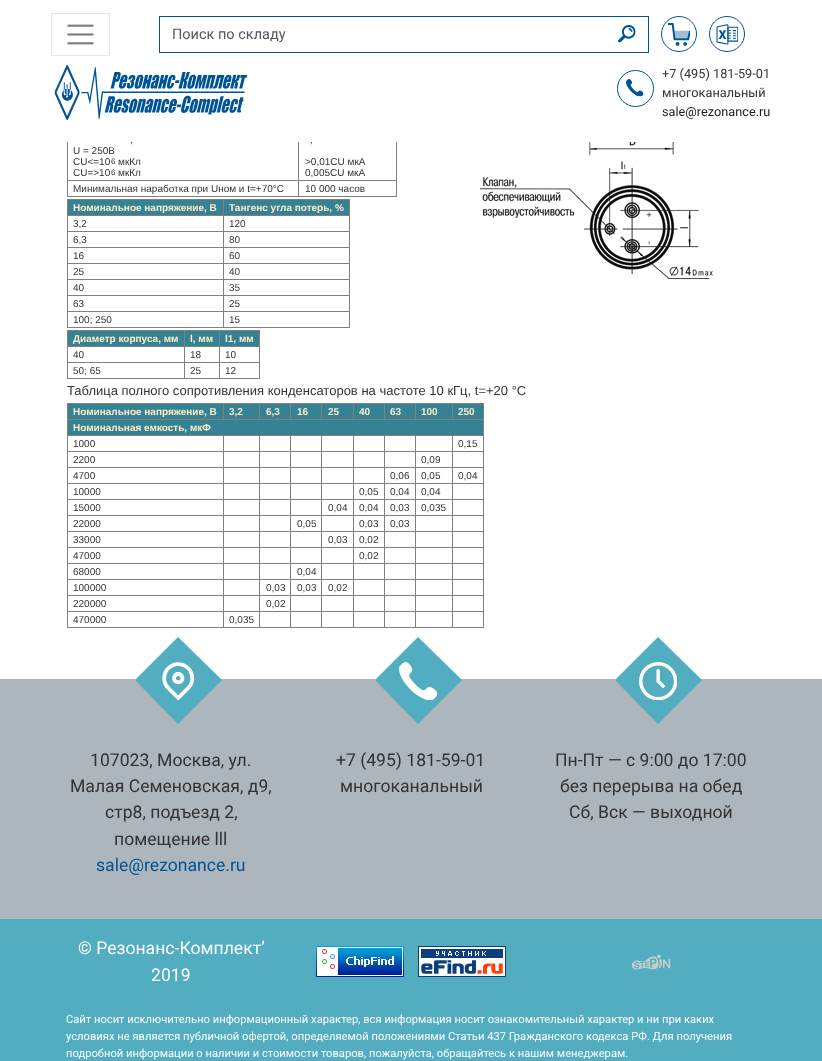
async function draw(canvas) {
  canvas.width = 822
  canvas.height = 1061
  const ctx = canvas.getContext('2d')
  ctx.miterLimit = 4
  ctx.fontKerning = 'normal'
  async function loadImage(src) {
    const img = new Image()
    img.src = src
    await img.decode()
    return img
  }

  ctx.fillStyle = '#fff'
  ctx.fillRect(0, 0, 822, 1061)
  ctx.font = '10px Liberation Sans'
  ctx.fillStyle = '#333'
  ctx.fillText(',', 130, 143)
  ctx.fillText(',', 310, 143)
  ctx.fillStyle = '#fff'
  ctx.fillRect(130, 141, 182, 1)
  ctx.strokeStyle = '#e6e6e6'
  ctx.strokeRect(51.5, 13.5, 58, 42)
  ctx.drawImage(await loadImage('image0.png'), 67, 24, 27, 21)
  ctx.fillStyle = '#005495'
  ctx.fillRect(159, 16, 490, 1)
  ctx.fillRect(159, 52, 448, 1)
  ctx.fillRect(159, 16, 1, 37)
  ctx.font = '14.5px Roboto'
  ctx.fillStyle = '#535762'
  ctx.fillText('Поиск по складу', 172, 39)
  ctx.fillStyle = '#005495'
  ctx.fillRect(648, 16, 1, 37)
  ctx.fillRect(606, 52, 43, 1)
  ctx.drawImage(await loadImage('image1.png'), 618, 25, 18, 18)
  ctx.beginPath()
  ctx.arc(679, 34, 17.5, 0, 2 * Math.PI)
  ctx.strokeStyle = '#005495'
  ctx.stroke()
  ctx.drawImage(await loadImage('image2.png'), 668, 23, 22, 23)
  ctx.beginPath()
  ctx.arc(727, 34, 17.5, 0, 2 * Math.PI)
  ctx.stroke()
  ctx.drawImage(await loadImage('image3.png'), 716, 24, 22, 21)
  ctx.drawImage(await loadImage('image4.png'), 54, 65, 194, 55)
  ctx.beginPath()
  ctx.arc(635.5, 88.5, 18, 0, 2 * Math.PI)
  ctx.stroke()
  ctx.drawImage(await loadImage('image5.png'), 626, 79, 18, 18)
  ctx.font = '12.75px Roboto'
  ctx.fillStyle = '#333'
  ctx.fillText('+7 (495) 181-59-01', 662, 78)
  ctx.fillText('многоканальный', 662, 97)
  ctx.fillStyle = '#1a1a1a'
  ctx.fillText('sale@rezonance.ru', 662, 116)
  ctx.fillStyle = '#808080'
  ctx.fillRect(396, 142, 1, 55)
  ctx.fillRect(67, 196, 330, 1)
  ctx.fillRect(67, 142, 1, 55)
  ctx.font = '10px Liberation Sans'
  ctx.fillStyle = '#333'
  ctx.fillText('U = 250B', 73, 154)
  ctx.fillText('CU<=10', 73, 165)
  ctx.font = '8px Liberation Sans'
  ctx.fillText('6', 111, 164)
  ctx.font = '10px Liberation Sans'
  ctx.fillText('мкКл', 118, 165)
  ctx.fillText('CU=>10', 73, 176)
  ctx.font = '8px Liberation Sans'
  ctx.fillText('6', 111, 175)
  ctx.font = '10px Liberation Sans'
  ctx.fillText('мкКл', 118, 176)
  ctx.fillStyle = '#808080'
  ctx.fillRect(298, 180, 99, 1)
  ctx.fillRect(298, 180, 1, 17)
  ctx.fillRect(67, 180, 232, 1)
  ctx.fillRect(298, 142, 1, 39)
  ctx.fillStyle = '#333'
  ctx.fillText('>0,01CU мкА', 305, 165)
  ctx.fillText('0,005CU мкА', 305, 176)
  ctx.fillText('Минимальная наработка при Uном и t=+70°C', 73, 192)
  ctx.fillText('10 000 часов', 305, 192)
  ctx.drawImage(await loadImage('image6.png'), 480, 142, 233, 137)
  ctx.fillStyle = '#808080'
  ctx.fillRect(67, 199, 283, 1)
  ctx.fillRect(349, 199, 1, 129)
  ctx.fillRect(67, 327, 283, 1)
  ctx.fillRect(67, 199, 1, 129)
  ctx.fillStyle = '#348293'
  ctx.fillRect(68, 200, 155, 15)
  ctx.font = 'bold 10px Liberation Sans'
  ctx.fillStyle = '#feebc7'
  ctx.fillText('Номинальное напряжение, В', 73, 211)
  ctx.fillStyle = '#348293'
  ctx.fillRect(224, 200, 125, 15)
  ctx.fillStyle = '#808080'
  ctx.fillRect(223, 215, 127, 1)
  ctx.fillRect(223, 231, 127, 1)
  ctx.fillRect(223, 247, 127, 1)
  ctx.fillRect(223, 263, 127, 1)
  ctx.fillRect(223, 279, 127, 1)
  ctx.fillRect(223, 295, 127, 1)
  ctx.fillRect(223, 311, 127, 1)
  ctx.fillRect(223, 311, 1, 17)
  ctx.fillRect(67, 311, 157, 1)
  ctx.fillRect(223, 295, 1, 17)
  ctx.fillRect(67, 295, 157, 1)
  ctx.fillRect(223, 279, 1, 17)
  ctx.fillRect(67, 279, 157, 1)
  ctx.fillRect(223, 263, 1, 17)
  ctx.fillRect(67, 263, 157, 1)
  ctx.fillRect(223, 247, 1, 17)
  ctx.fillRect(67, 247, 157, 1)
  ctx.fillRect(223, 231, 1, 17)
  ctx.fillRect(67, 231, 157, 1)
  ctx.fillRect(223, 215, 1, 17)
  ctx.fillRect(67, 215, 157, 1)
  ctx.fillRect(223, 199, 1, 17)
  ctx.fillStyle = '#feebc7'
  ctx.fillText('Тангенс угла потерь, %', 229, 211)
  ctx.font = '10px Liberation Sans'
  ctx.fillStyle = '#333'
  ctx.fillText('3,2', 73, 227)
  ctx.fillText('120', 229, 227)
  ctx.fillText('6,3', 73, 243)
  ctx.fillText('80', 229, 243)
  ctx.fillText('16', 73, 259)
  ctx.fillText('60', 229, 259)
  ctx.fillText('25', 73, 275)
  ctx.fillText('40', 229, 275)
  ctx.fillText('40', 73, 291)
  ctx.fillText('35', 229, 291)
  ctx.fillText('63', 73, 307)
  ctx.fillText('25', 229, 307)
  ctx.fillText('100; 250', 73, 323)
  ctx.fillText('15', 229, 323)
  ctx.fillStyle = '#808080'
  ctx.fillRect(67, 330, 193, 1)
  ctx.fillRect(259, 330, 1, 49)
  ctx.fillRect(67, 378, 193, 1)
  ctx.fillRect(67, 330, 1, 49)
  ctx.fillStyle = '#348293'
  ctx.fillRect(68, 331, 116, 15)
  ctx.font = 'bold 10px Liberation Sans'
  ctx.fillStyle = '#feebc7'
  ctx.fillText('Диаметр корпуса, мм', 73, 342)
  ctx.fillStyle = '#348293'
  ctx.fillRect(185, 331, 34, 15)
  ctx.fillStyle = '#808080'
  ctx.fillRect(219, 346, 41, 1)
  ctx.fillRect(219, 362, 41, 1)
  ctx.fillRect(219, 362, 1, 17)
  ctx.fillRect(184, 362, 36, 1)
  ctx.fillRect(219, 346, 1, 17)
  ctx.fillRect(184, 346, 36, 1)
  ctx.fillRect(184, 362, 1, 17)
  ctx.fillRect(67, 362, 118, 1)
  ctx.fillRect(184, 346, 1, 17)
  ctx.fillRect(67, 346, 118, 1)
  ctx.fillRect(184, 330, 1, 17)
  ctx.fillStyle = '#feebc7'
  ctx.fillText('l, мм', 190, 342)
  ctx.fillStyle = '#348293'
  ctx.fillRect(220, 331, 39, 15)
  ctx.fillStyle = '#808080'
  ctx.fillRect(219, 330, 1, 17)
  ctx.fillStyle = '#feebc7'
  ctx.fillText('l1, мм', 225, 342)
  ctx.font = '10px Liberation Sans'
  ctx.fillStyle = '#333'
  ctx.fillText('40', 73, 358)
  ctx.fillText('18', 190, 358)
  ctx.fillText('10', 225, 358)
  ctx.fillText('50; 65', 73, 374)
  ctx.fillText('25', 190, 374)
  ctx.fillText('12', 225, 374)
  ctx.font = '13px Liberation Sans'
  ctx.fillText('Таблица полного сопротивления конденсаторов на частоте 10 кГц, t=+20 °C', 67, 395)
  ctx.fillStyle = '#808080'
  ctx.fillRect(67, 403, 417, 1)
  ctx.fillRect(483, 403, 1, 225)
  ctx.fillRect(67, 627, 417, 1)
  ctx.fillRect(67, 403, 1, 225)
  ctx.fillStyle = '#348293'
  ctx.fillRect(68, 404, 155, 15)
  ctx.font = 'bold 10px Liberation Sans'
  ctx.fillStyle = '#feebc7'
  ctx.fillText('Номинальное напряжение, В', 73, 415)
  ctx.fillStyle = '#348293'
  ctx.fillRect(224, 404, 35, 15)
  ctx.fillStyle = '#808080'
  ctx.fillRect(67, 419, 417, 1)
  ctx.fillRect(223, 403, 1, 17)
  ctx.fillStyle = '#feebc7'
  ctx.fillText('3,2', 229, 415)
  ctx.fillStyle = '#348293'
  ctx.fillRect(260, 404, 30, 15)
  ctx.fillStyle = '#808080'
  ctx.fillRect(259, 403, 1, 17)
  ctx.fillStyle = '#feebc7'
  ctx.fillText('6,3', 266, 415)
  ctx.fillStyle = '#348293'
  ctx.fillRect(291, 404, 30, 15)
  ctx.fillStyle = '#808080'
  ctx.fillRect(290, 403, 1, 17)
  ctx.fillStyle = '#feebc7'
  ctx.fillText('16', 297, 415)
  ctx.fillStyle = '#348293'
  ctx.fillRect(322, 404, 31, 15)
  ctx.fillStyle = '#808080'
  ctx.fillRect(321, 403, 1, 17)
  ctx.fillStyle = '#feebc7'
  ctx.fillText('25', 328, 415)
  ctx.fillStyle = '#348293'
  ctx.fillRect(354, 404, 30, 15)
  ctx.fillStyle = '#808080'
  ctx.fillRect(353, 403, 1, 17)
  ctx.fillStyle = '#feebc7'
  ctx.fillText('40', 359, 415)
  ctx.fillStyle = '#348293'
  ctx.fillRect(385, 404, 30, 15)
  ctx.fillStyle = '#808080'
  ctx.fillRect(384, 403, 1, 17)
  ctx.fillStyle = '#feebc7'
  ctx.fillText('63', 390, 415)
  ctx.fillStyle = '#348293'
  ctx.fillRect(416, 404, 36, 15)
  ctx.fillStyle = '#808080'
  ctx.fillRect(415, 403, 1, 17)
  ctx.fillStyle = '#feebc7'
  ctx.fillText('100', 421, 415)
  ctx.fillStyle = '#348293'
  ctx.fillRect(453, 404, 30, 15)
  ctx.fillStyle = '#808080'
  ctx.fillRect(452, 403, 1, 17)
  ctx.fillStyle = '#feebc7'
  ctx.fillText('250', 458, 415)
  ctx.fillStyle = '#348293'
  ctx.fillRect(68, 420, 415, 15)
  ctx.fillStyle = '#feebc7'
  ctx.fillText('Номинальная емкость, мкФ', 73, 431)
  ctx.fillStyle = '#808080'
  ctx.fillRect(452, 435, 32, 1)
  ctx.fillRect(452, 451, 32, 1)
  ctx.fillRect(452, 467, 32, 1)
  ctx.fillRect(452, 483, 32, 1)
  ctx.fillRect(452, 499, 32, 1)
  ctx.fillRect(452, 515, 32, 1)
  ctx.fillRect(452, 531, 32, 1)
  ctx.fillRect(452, 547, 32, 1)
  ctx.fillRect(452, 563, 32, 1)
  ctx.fillRect(452, 579, 32, 1)
  ctx.fillRect(452, 595, 32, 1)
  ctx.fillRect(452, 611, 32, 1)
  ctx.fillRect(452, 611, 1, 17)
  ctx.fillRect(415, 611, 38, 1)
  ctx.fillRect(452, 595, 1, 17)
  ctx.fillRect(415, 595, 38, 1)
  ctx.fillRect(452, 579, 1, 17)
  ctx.fillRect(415, 579, 38, 1)
  ctx.fillRect(452, 563, 1, 17)
  ctx.fillRect(415, 563, 38, 1)
  ctx.fillRect(452, 547, 1, 17)
  ctx.fillRect(415, 547, 38, 1)
  ctx.fillRect(452, 531, 1, 17)
  ctx.fillRect(415, 531, 38, 1)
  ctx.fillRect(452, 515, 1, 17)
  ctx.fillRect(415, 515, 38, 1)
  ctx.fillRect(452, 499, 1, 17)
  ctx.fillRect(415, 499, 38, 1)
  ctx.fillRect(452, 483, 1, 17)
  ctx.fillRect(415, 483, 38, 1)
  ctx.fillRect(452, 467, 1, 17)
  ctx.fillRect(415, 467, 38, 1)
  ctx.fillRect(452, 451, 1, 17)
  ctx.fillRect(415, 451, 38, 1)
  ctx.fillRect(452, 435, 1, 17)
  ctx.fillRect(415, 435, 38, 1)
  ctx.fillRect(415, 611, 1, 17)
  ctx.fillRect(384, 611, 32, 1)
  ctx.fillRect(415, 595, 1, 17)
  ctx.fillRect(384, 595, 32, 1)
  ctx.fillRect(415, 579, 1, 17)
  ctx.fillRect(384, 579, 32, 1)
  ctx.fillRect(415, 563, 1, 17)
  ctx.fillRect(384, 563, 32, 1)
  ctx.fillRect(415, 547, 1, 17)
  ctx.fillRect(384, 547, 32, 1)
  ctx.fillRect(415, 531, 1, 17)
  ctx.fillRect(384, 531, 32, 1)
  ctx.fillRect(415, 515, 1, 17)
  ctx.fillRect(384, 515, 32, 1)
  ctx.fillRect(415, 499, 1, 17)
  ctx.fillRect(384, 499, 32, 1)
  ctx.fillRect(415, 483, 1, 17)
  ctx.fillRect(384, 483, 32, 1)
  ctx.fillRect(415, 467, 1, 17)
  ctx.fillRect(384, 467, 32, 1)
  ctx.fillRect(415, 451, 1, 17)
  ctx.fillRect(384, 451, 32, 1)
  ctx.fillRect(415, 435, 1, 17)
  ctx.fillRect(384, 435, 32, 1)
  ctx.fillRect(384, 611, 1, 17)
  ctx.fillRect(353, 611, 32, 1)
  ctx.fillRect(384, 595, 1, 17)
  ctx.fillRect(353, 595, 32, 1)
  ctx.fillRect(384, 579, 1, 17)
  ctx.fillRect(353, 579, 32, 1)
  ctx.fillRect(384, 563, 1, 17)
  ctx.fillRect(353, 563, 32, 1)
  ctx.fillRect(384, 547, 1, 17)
  ctx.fillRect(353, 547, 32, 1)
  ctx.fillRect(384, 531, 1, 17)
  ctx.fillRect(353, 531, 32, 1)
  ctx.fillRect(384, 515, 1, 17)
  ctx.fillRect(353, 515, 32, 1)
  ctx.fillRect(384, 499, 1, 17)
  ctx.fillRect(353, 499, 32, 1)
  ctx.fillRect(384, 483, 1, 17)
  ctx.fillRect(353, 483, 32, 1)
  ctx.fillRect(384, 467, 1, 17)
  ctx.fillRect(353, 467, 32, 1)
  ctx.fillRect(384, 451, 1, 17)
  ctx.fillRect(353, 451, 32, 1)
  ctx.fillRect(384, 435, 1, 17)
  ctx.fillRect(353, 435, 32, 1)
  ctx.fillRect(353, 611, 1, 17)
  ctx.fillRect(321, 611, 33, 1)
  ctx.fillRect(353, 595, 1, 17)
  ctx.fillRect(321, 595, 33, 1)
  ctx.fillRect(353, 579, 1, 17)
  ctx.fillRect(321, 579, 33, 1)
  ctx.fillRect(353, 563, 1, 17)
  ctx.fillRect(321, 563, 33, 1)
  ctx.fillRect(353, 547, 1, 17)
  ctx.fillRect(321, 547, 33, 1)
  ctx.fillRect(353, 531, 1, 17)
  ctx.fillRect(321, 531, 33, 1)
  ctx.fillRect(353, 515, 1, 17)
  ctx.fillRect(321, 515, 33, 1)
  ctx.fillRect(353, 499, 1, 17)
  ctx.fillRect(321, 499, 33, 1)
  ctx.fillRect(353, 483, 1, 17)
  ctx.fillRect(321, 483, 33, 1)
  ctx.fillRect(353, 467, 1, 17)
  ctx.fillRect(321, 467, 33, 1)
  ctx.fillRect(353, 451, 1, 17)
  ctx.fillRect(321, 451, 33, 1)
  ctx.fillRect(353, 435, 1, 17)
  ctx.fillRect(321, 435, 33, 1)
  ctx.fillRect(321, 611, 1, 17)
  ctx.fillRect(290, 611, 32, 1)
  ctx.fillRect(321, 595, 1, 17)
  ctx.fillRect(290, 595, 32, 1)
  ctx.fillRect(321, 579, 1, 17)
  ctx.fillRect(290, 579, 32, 1)
  ctx.fillRect(321, 563, 1, 17)
  ctx.fillRect(290, 563, 32, 1)
  ctx.fillRect(321, 547, 1, 17)
  ctx.fillRect(290, 547, 32, 1)
  ctx.fillRect(321, 531, 1, 17)
  ctx.fillRect(290, 531, 32, 1)
  ctx.fillRect(321, 515, 1, 17)
  ctx.fillRect(290, 515, 32, 1)
  ctx.fillRect(321, 499, 1, 17)
  ctx.fillRect(290, 499, 32, 1)
  ctx.fillRect(321, 483, 1, 17)
  ctx.fillRect(290, 483, 32, 1)
  ctx.fillRect(321, 467, 1, 17)
  ctx.fillRect(290, 467, 32, 1)
  ctx.fillRect(321, 451, 1, 17)
  ctx.fillRect(290, 451, 32, 1)
  ctx.fillRect(321, 435, 1, 17)
  ctx.fillRect(290, 435, 32, 1)
  ctx.fillRect(290, 611, 1, 17)
  ctx.fillRect(259, 611, 32, 1)
  ctx.fillRect(290, 595, 1, 17)
  ctx.fillRect(259, 595, 32, 1)
  ctx.fillRect(290, 579, 1, 17)
  ctx.fillRect(259, 579, 32, 1)
  ctx.fillRect(290, 563, 1, 17)
  ctx.fillRect(259, 563, 32, 1)
  ctx.fillRect(290, 547, 1, 17)
  ctx.fillRect(259, 547, 32, 1)
  ctx.fillRect(290, 531, 1, 17)
  ctx.fillRect(259, 531, 32, 1)
  ctx.fillRect(290, 515, 1, 17)
  ctx.fillRect(259, 515, 32, 1)
  ctx.fillRect(290, 499, 1, 17)
  ctx.fillRect(259, 499, 32, 1)
  ctx.fillRect(290, 483, 1, 17)
  ctx.fillRect(259, 483, 32, 1)
  ctx.fillRect(290, 467, 1, 17)
  ctx.fillRect(259, 467, 32, 1)
  ctx.fillRect(290, 451, 1, 17)
  ctx.fillRect(259, 451, 32, 1)
  ctx.fillRect(290, 435, 1, 17)
  ctx.fillRect(259, 435, 32, 1)
  ctx.fillRect(259, 611, 1, 17)
  ctx.fillRect(223, 611, 37, 1)
  ctx.fillRect(259, 595, 1, 17)
  ctx.fillRect(223, 595, 37, 1)
  ctx.fillRect(259, 579, 1, 17)
  ctx.fillRect(223, 579, 37, 1)
  ctx.fillRect(259, 563, 1, 17)
  ctx.fillRect(223, 563, 37, 1)
  ctx.fillRect(259, 547, 1, 17)
  ctx.fillRect(223, 547, 37, 1)
  ctx.fillRect(259, 531, 1, 17)
  ctx.fillRect(223, 531, 37, 1)
  ctx.fillRect(259, 515, 1, 17)
  ctx.fillRect(223, 515, 37, 1)
  ctx.fillRect(259, 499, 1, 17)
  ctx.fillRect(223, 499, 37, 1)
  ctx.fillRect(259, 483, 1, 17)
  ctx.fillRect(223, 483, 37, 1)
  ctx.fillRect(259, 467, 1, 17)
  ctx.fillRect(223, 467, 37, 1)
  ctx.fillRect(259, 451, 1, 17)
  ctx.fillRect(223, 451, 37, 1)
  ctx.fillRect(259, 435, 1, 17)
  ctx.fillRect(223, 435, 37, 1)
  ctx.fillRect(223, 611, 1, 17)
  ctx.fillRect(67, 611, 157, 1)
  ctx.fillRect(223, 595, 1, 17)
  ctx.fillRect(67, 595, 157, 1)
  ctx.fillRect(223, 579, 1, 17)
  ctx.fillRect(67, 579, 157, 1)
  ctx.fillRect(223, 563, 1, 17)
  ctx.fillRect(67, 563, 157, 1)
  ctx.fillRect(223, 547, 1, 17)
  ctx.fillRect(67, 547, 157, 1)
  ctx.fillRect(223, 531, 1, 17)
  ctx.fillRect(67, 531, 157, 1)
  ctx.fillRect(223, 515, 1, 17)
  ctx.fillRect(67, 515, 157, 1)
  ctx.fillRect(223, 499, 1, 17)
  ctx.fillRect(67, 499, 157, 1)
  ctx.fillRect(223, 483, 1, 17)
  ctx.fillRect(67, 483, 157, 1)
  ctx.fillRect(223, 467, 1, 17)
  ctx.fillRect(67, 467, 157, 1)
  ctx.fillRect(223, 451, 1, 17)
  ctx.fillRect(67, 451, 157, 1)
  ctx.fillRect(223, 435, 1, 17)
  ctx.fillRect(67, 435, 157, 1)
  ctx.font = '10px Liberation Sans'
  ctx.fillStyle = '#333'
  ctx.fillText('1000', 73, 447)
  ctx.fillText('0,15', 458, 447)
  ctx.fillText('2200', 73, 463)
  ctx.fillText('0,09', 421, 463)
  ctx.fillText('4700', 73, 479)
  ctx.fillText('0,06', 390, 479)
  ctx.fillText('0,05', 421, 479)
  ctx.fillText('0,04', 458, 479)
  ctx.fillText('10000', 73, 495)
  ctx.fillText('0,05', 359, 495)
  ctx.fillText('0,04', 390, 495)
  ctx.fillText('0,04', 421, 495)
  ctx.fillText('15000', 73, 511)
  ctx.fillText('0,04', 328, 511)
  ctx.fillText('0,04', 359, 511)
  ctx.fillText('0,03', 390, 511)
  ctx.fillText('0,035', 421, 511)
  ctx.fillText('22000', 73, 527)
  ctx.fillText('0,05', 297, 527)
  ctx.fillText('0,03', 359, 527)
  ctx.fillText('0,03', 390, 527)
  ctx.fillText('33000', 73, 543)
  ctx.fillText('0,03', 328, 543)
  ctx.fillText('0,02', 359, 543)
  ctx.fillText('47000', 73, 559)
  ctx.fillText('0,02', 359, 559)
  ctx.fillText('68000', 73, 575)
  ctx.fillText('0,04', 297, 575)
  ctx.fillText('100000', 73, 591)
  ctx.fillText('0,03', 266, 591)
  ctx.fillText('0,03', 297, 591)
  ctx.fillText('0,02', 328, 591)
  ctx.fillText('220000', 73, 607)
  ctx.fillText('0,02', 266, 607)
  ctx.fillText('470000', 73, 623)
  ctx.fillText('0,035', 229, 623)
  ctx.fillStyle = '#adb5bd'
  ctx.fillRect(0, 679, 822, 240)
  ctx.fillStyle = '#52adc0'
  ctx.beginPath()
  ctx.moveTo(178, 637)
  ctx.lineTo(222, 680)
  ctx.lineTo(178, 724)
  ctx.lineTo(135, 680)
  ctx.closePath()
  ctx.fill()
  ctx.drawImage(await loadImage('image7.png'), 162, 662, 33, 38)
  ctx.font = '17.6px Roboto'
  ctx.fillStyle = '#333'
  ctx.fillText('107023, Москва, ул.', 90, 766)
  ctx.fillText('Малая Семеновская, д9,', 70, 792)
  ctx.fillText('стр8, подъезд 2,', 105, 818)
  ctx.fillText('помещение lll', 114, 845)
  ctx.fillStyle = '#005495'
  ctx.fillText('sale@rezonance.ru', 96, 871)
  ctx.fillStyle = '#52adc0'
  ctx.beginPath()
  ctx.moveTo(418, 637)
  ctx.lineTo(462, 680)
  ctx.lineTo(418, 724)
  ctx.lineTo(375, 680)
  ctx.closePath()
  ctx.fill()
  ctx.drawImage(await loadImage('image8.png'), 399, 662, 38, 38)
  ctx.fillStyle = '#333'
  ctx.fillText('+7 (495) 181-59-01', 336, 766)
  ctx.fillText('многоканальный', 340, 792)
  ctx.fillStyle = '#52adc0'
  ctx.beginPath()
  ctx.moveTo(658, 637)
  ctx.lineTo(702, 680)
  ctx.lineTo(658, 724)
  ctx.lineTo(615, 680)
  ctx.closePath()
  ctx.fill()
  ctx.drawImage(await loadImage('image9.png'), 639, 662, 38, 38)
  ctx.fillStyle = '#333'
  ctx.fillText('Пн-Пт — с 9:00 до 17:00', 555, 766)
  ctx.fillText('без перерыва на обед', 560, 792)
  ctx.fillText('Сб, Вск — выходной', 569, 818)
  ctx.fillStyle = '#52adc0'
  ctx.fillRect(0, 919, 822, 142)
  ctx.fillStyle = '#fff'
  ctx.fillText('© Резонанс-Комплект’', 78, 954)
  ctx.fillText('2019', 151, 981)
  ctx.drawImage(await loadImage('image10.png'), 316, 946, 88, 31)
  ctx.drawImage(await loadImage('image11.png'), 418, 946, 88, 31)
  ctx.drawImage(await loadImage('image12.png'), 631, 954, 40, 16)
  ctx.font = '11.2px Roboto'
  ctx.fillText('Сайт носит исключительно информационный характер, вся информация носит ознакомительный характер и ни при каких', 66, 1023)
  ctx.fillText('условиях не является публичной офертой, определяемой положениями Статьи 437 Гражданского кодекса РФ. Для получения', 66, 1040)
  ctx.fillText('подробной информации о наличии и стоимости товаров, пожалуйста, обращайтесь к нашим менеджерам.', 66, 1057)
}

draw(document.querySelector('canvas'))
